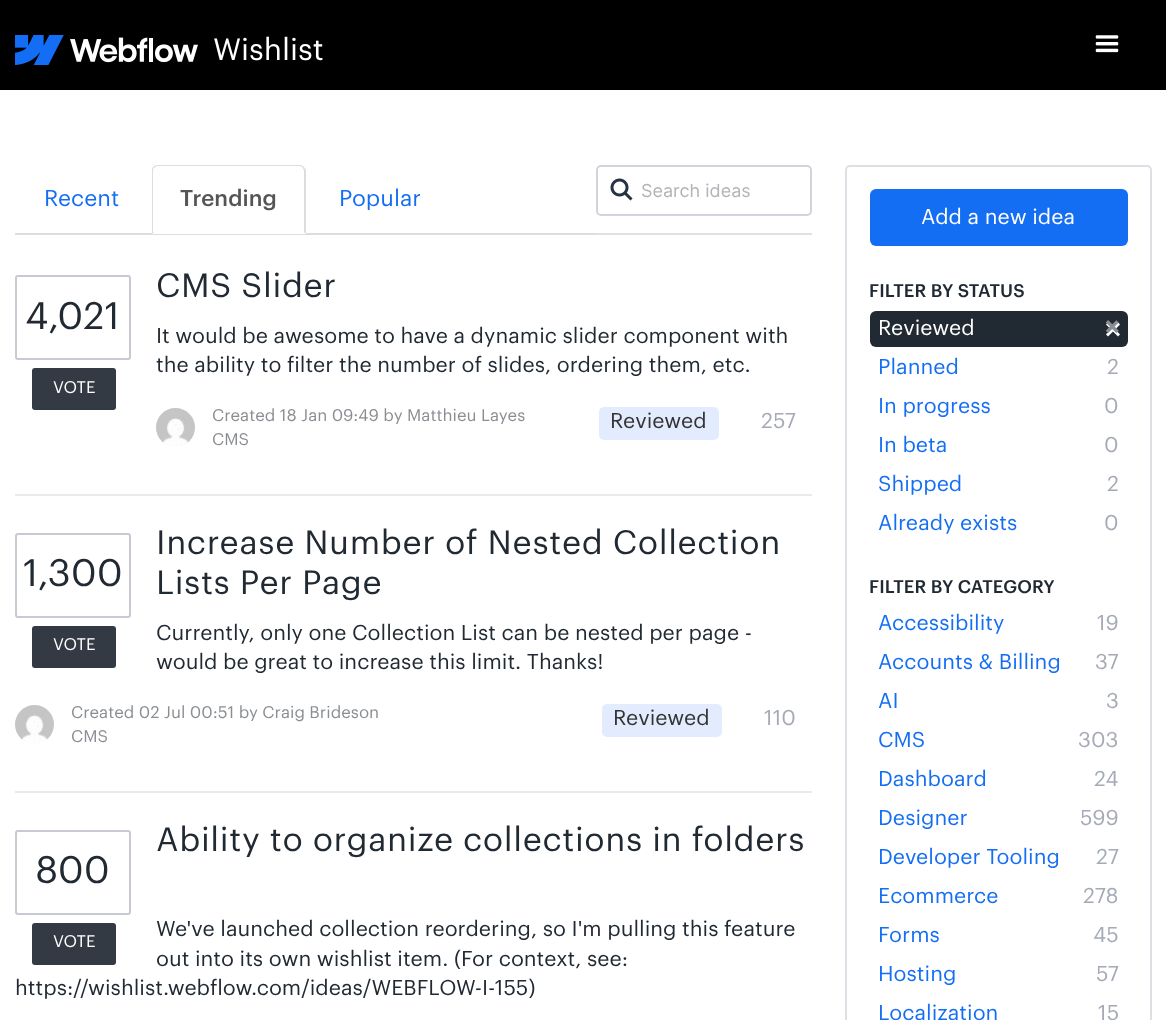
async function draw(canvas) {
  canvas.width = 1166
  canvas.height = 1020
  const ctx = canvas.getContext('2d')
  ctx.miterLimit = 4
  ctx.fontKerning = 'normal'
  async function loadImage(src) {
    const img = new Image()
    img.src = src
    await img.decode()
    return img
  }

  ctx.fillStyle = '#fff'
  ctx.fillRect(0, 0, 1166, 1020)
  ctx.fillStyle = '#000'
  ctx.fillRect(0, 0, 1166, 90)
  ctx.drawImage(await loadImage('image0.png'), 15, 35, 183, 30)
  ctx.font = '30px Graphik'
  ctx.fillStyle = '#fff'
  ctx.fillText('Wishlist', 213, 60)
  ctx.drawImage(await loadImage('image1.png'), 1095, 35, 24, 18)
  ctx.fillStyle = '#ddd'
  ctx.fillRect(15, 233, 581, 2)
  ctx.font = '22.5px Graphik'
  ctx.fillStyle = '#146ef4'
  ctx.fillText('Recent', 44, 206)
  ctx.fillStyle = '#fff'
  ctx.beginPath()
  ctx.roundRect(152, 165, 154, 69, [6, 6, 0, 0])
  ctx.fill()
  ctx.fillStyle = '#ddd'
  ctx.beginPath()
  ctx.moveTo(158, 165)
  ctx.bezierCurveTo(156, 165, 154, 166, 153, 167)
  ctx.lineTo(154, 168)
  ctx.lineTo(157, 166)
  ctx.lineTo(300, 166)
  ctx.bezierCurveTo(301, 166, 302, 167, 303, 168)
  ctx.lineTo(304, 167)
  ctx.bezierCurveTo(303, 166, 302, 165, 300, 165)
  ctx.closePath()
  ctx.fill()
  ctx.beginPath()
  ctx.moveTo(306, 234)
  ctx.lineTo(306, 171)
  ctx.bezierCurveTo(306, 170, 305, 168, 304, 167)
  ctx.lineTo(303, 168)
  ctx.lineTo(304, 171)
  ctx.lineTo(304, 232)
  ctx.closePath()
  ctx.fill()
  ctx.beginPath()
  ctx.moveTo(153, 167)
  ctx.bezierCurveTo(152, 168, 152, 170, 152, 171)
  ctx.lineTo(152, 234)
  ctx.lineTo(154, 232)
  ctx.lineTo(153, 232)
  ctx.lineTo(153, 171)
  ctx.bezierCurveTo(153, 170, 153, 169, 154, 168)
  ctx.closePath()
  ctx.fill()
  ctx.font = '500 22.5px Graphik'
  ctx.fillStyle = '#555'
  ctx.fillText('Trending', 180, 206)
  ctx.font = '22.5px Graphik'
  ctx.fillStyle = '#146ef4'
  ctx.fillText('Popular', 339, 206)
  ctx.fillStyle = '#e1e1e1'
  ctx.fillRect(596, 233, 216, 2)
  ctx.beginPath()
  ctx.roundRect(597, 166, 214, 49, 4)
  ctx.strokeStyle = '#d2d4db'
  ctx.lineWidth = 2
  ctx.stroke()
  ctx.drawImage(await loadImage('image2.png'), 610, 178, 23, 23)
  ctx.font = '18px Inter'
  ctx.fillStyle = '#b1b4b8'
  ctx.fillText('Search ideas', 641, 197)
  ctx.fillStyle = '#e9eaed'
  ctx.fillRect(15, 494, 797, 2)
  ctx.beginPath()
  ctx.roundRect(16, 276, 114, 83, 2)
  ctx.strokeStyle = '#c7cad2'
  ctx.stroke()
  ctx.font = '37.5px Graphik'
  ctx.fillStyle = '#212933'
  ctx.fillText('4,021', 25, 329)
  ctx.fillStyle = '#333a43'
  ctx.beginPath()
  ctx.roundRect(32, 368, 84, 42, 3)
  ctx.fill()
  ctx.font = '16.5px Graphik'
  ctx.fillStyle = '#fff'
  ctx.fillText('VOTE', 53, 393)
  ctx.letterSpacing = '0.6px'
  ctx.font = '33px Graphik'
  ctx.fillStyle = '#212933'
  ctx.fillText('CMS Slider', 156, 297)
  ctx.letterSpacing = '0px'
  ctx.font = '21px Graphik'
  ctx.fillText('It would be awesome to have a dynamic slider component with', 156, 343)
  ctx.fillText('the ability to filter the number of slides, ordering them, etc.', 156, 372)
  ctx.drawImage(await loadImage('image3.png'), 156, 408, 39, 39)
  ctx.font = '16.5px Graphik'
  ctx.fillStyle = '#8a8e93'
  ctx.fillText('Created 18 Jan 09:49 by Matthieu Layes', 212, 421)
  ctx.fillText('CMS', 212, 445)
  ctx.fillStyle = '#e3ecfe'
  ctx.beginPath()
  ctx.roundRect(599, 407, 120, 33, 5)
  ctx.fill()
  ctx.font = '21px Graphik'
  ctx.fillStyle = '#333'
  ctx.fillText('Reviewed', 610, 428)
  ctx.fillStyle = '#a5aab6'
  ctx.fillText('257', 761, 428)
  ctx.fillStyle = '#e9eaed'
  ctx.fillRect(15, 791, 797, 2)
  ctx.letterSpacing = '0.6px'
  ctx.font = '33px Graphik'
  ctx.fillStyle = '#212933'
  ctx.fillText('Increase Number of Nested Collection', 156, 554)
  ctx.fillText('Lists Per Page', 156, 594)
  ctx.letterSpacing = '0px'
  ctx.font = '21px Graphik'
  ctx.fillText('Currently, only one Collection List can be nested per page -', 156, 640)
  ctx.fillText('would be great to increase this limit. Thanks!', 156, 669)
  ctx.drawImage(await loadImage('image3.png'), 15, 705, 39, 39)
  ctx.font = '16.5px Graphik'
  ctx.fillStyle = '#8a8e93'
  ctx.fillText('Created 02 Jul 00:51 by Craig Brideson', 71, 718)
  ctx.fillText('CMS', 71, 742)
  ctx.fillStyle = '#e3ecfe'
  ctx.beginPath()
  ctx.roundRect(602, 704, 120, 33, 5)
  ctx.fill()
  ctx.font = '21px Graphik'
  ctx.fillStyle = '#333'
  ctx.fillText('Reviewed', 613, 725)
  ctx.fillStyle = '#a5aab6'
  ctx.fillText('110', 764, 725)
  ctx.beginPath()
  ctx.roundRect(16, 534, 114, 83, 2)
  ctx.stroke()
  ctx.font = '37.5px Graphik'
  ctx.fillStyle = '#212933'
  ctx.fillText('1,300', 23, 586)
  ctx.fillStyle = '#333a43'
  ctx.beginPath()
  ctx.roundRect(32, 626, 84, 42, 3)
  ctx.fill()
  ctx.font = '16.5px Graphik'
  ctx.fillStyle = '#fff'
  ctx.fillText('VOTE', 53, 650)
  ctx.letterSpacing = '0.6px'
  ctx.font = '33px Graphik'
  ctx.fillStyle = '#212933'
  ctx.fillText('Ability to organize collections in folders', 156, 851)
  ctx.letterSpacing = '0px'
  ctx.font = '21px Graphik'
  ctx.fillText('We\'ve launched collection reordering, so I\'m pulling this feature', 156, 936)
  ctx.fillText('out into its own wishlist item. (For context, see:', 156, 966)
  ctx.fillText('https://wishlist.webflow.com/ideas/WEBFLOW-I-155)', 15, 995)
  ctx.beginPath()
  ctx.roundRect(16, 831, 114, 83, 2)
  ctx.stroke()
  ctx.font = '37.5px Graphik'
  ctx.fillText('800', 35, 883)
  ctx.fillStyle = '#333a43'
  ctx.beginPath()
  ctx.roundRect(32, 923, 84, 42, 3)
  ctx.fill()
  ctx.font = '16.5px Graphik'
  ctx.fillStyle = '#fff'
  ctx.fillText('VOTE', 53, 947)
  ctx.beginPath()
  ctx.roundRect(846, 166, 305, 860, 4)
  ctx.strokeStyle = '#dddfe4'
  ctx.stroke()
  ctx.fillStyle = '#146ef4'
  ctx.beginPath()
  ctx.roundRect(870, 189, 258, 57, 6)
  ctx.fill()
  ctx.font = '21px Graphik'
  ctx.fillStyle = '#fff'
  ctx.fillText('Add a new idea', 921, 224)
  ctx.font = '500 18px Graphik'
  ctx.fillStyle = '#212933'
  ctx.fillText('FILTER BY STATUS', 869, 297)
  ctx.beginPath()
  ctx.roundRect(870, 311, 258, 36, 6)
  ctx.fill()
  ctx.font = '21px Graphik'
  ctx.fillStyle = '#fff'
  ctx.fillText('Reviewed', 878, 335)
  ctx.drawImage(await loadImage('image4.png'), 1106, 322, 14, 15)
  ctx.font = 'bold 27px Graphik'
  ctx.fillStyle = '#8a8e93'
  ctx.fillText('×', 1105, 336)
  ctx.font = '21px Graphik'
  ctx.fillStyle = '#146ef4'
  ctx.fillText('Planned', 878, 374)
  ctx.fillStyle = '#a5aab6'
  ctx.fillText('2', 1107, 374)
  ctx.fillStyle = '#146ef4'
  ctx.fillText('In progress', 878, 413)
  ctx.fillStyle = '#a5aab6'
  ctx.fillText('0', 1104, 413)
  ctx.fillStyle = '#146ef4'
  ctx.fillText('In beta', 878, 452)
  ctx.fillStyle = '#a5aab6'
  ctx.fillText('0', 1104, 452)
  ctx.fillStyle = '#146ef4'
  ctx.fillText('Shipped', 878, 491)
  ctx.fillStyle = '#a5aab6'
  ctx.fillText('2', 1107, 491)
  ctx.fillStyle = '#146ef4'
  ctx.fillText('Already exists', 878, 530)
  ctx.fillStyle = '#a5aab6'
  ctx.fillText('0', 1104, 530)
  ctx.font = '500 18px Graphik'
  ctx.fillStyle = '#212933'
  ctx.fillText('FILTER BY CATEGORY', 869, 593)
  ctx.font = '21px Graphik'
  ctx.fillStyle = '#146ef4'
  ctx.fillText('Accessibility', 878, 630)
  ctx.fillStyle = '#a5aab6'
  ctx.fillText('19', 1097, 630)
  ctx.fillStyle = '#146ef4'
  ctx.fillText('Accounts & Billing', 878, 669)
  ctx.fillStyle = '#a5aab6'
  ctx.fillText('37', 1095, 669)
  ctx.fillStyle = '#146ef4'
  ctx.fillText('AI', 878, 708)
  ctx.fillStyle = '#a5aab6'
  ctx.fillText('3', 1106, 708)
  ctx.fillStyle = '#146ef4'
  ctx.fillText('CMS', 878, 747)
  ctx.fillStyle = '#a5aab6'
  ctx.fillText('303', 1078, 747)
  ctx.fillStyle = '#146ef4'
  ctx.fillText('Dashboard', 878, 786)
  ctx.fillStyle = '#a5aab6'
  ctx.fillText('24', 1094, 786)
  ctx.fillStyle = '#146ef4'
  ctx.fillText('Designer', 878, 825)
  ctx.fillStyle = '#a5aab6'
  ctx.fillText('599', 1080, 825)
  ctx.fillStyle = '#146ef4'
  ctx.fillText('Developer Tooling', 878, 864)
  ctx.fillStyle = '#a5aab6'
  ctx.fillText('27', 1096, 864)
  ctx.fillStyle = '#146ef4'
  ctx.fillText('Ecommerce', 878, 903)
  ctx.fillStyle = '#a5aab6'
  ctx.fillText('278', 1083, 903)
  ctx.fillStyle = '#146ef4'
  ctx.fillText('Forms', 878, 942)
  ctx.fillStyle = '#a5aab6'
  ctx.fillText('45', 1093, 942)
  ctx.fillStyle = '#146ef4'
  ctx.fillText('Hosting', 878, 981)
  ctx.fillStyle = '#a5aab6'
  ctx.fillText('57', 1096, 981)
  ctx.fillStyle = '#146ef4'
  ctx.fillText('Localization', 878, 1020)
  ctx.fillStyle = '#a5aab6'
  ctx.fillText('15', 1098, 1020)
}

draw(document.querySelector('canvas'))
